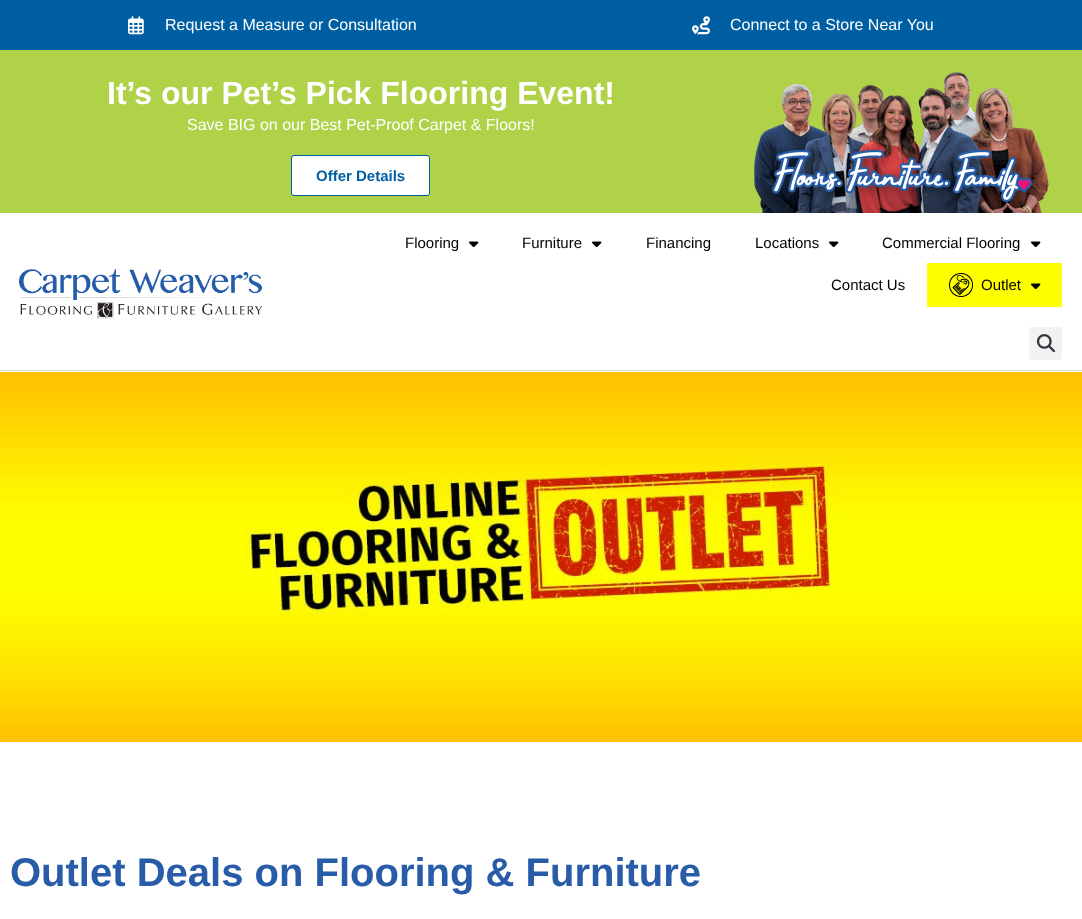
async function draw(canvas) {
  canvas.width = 1082
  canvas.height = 919
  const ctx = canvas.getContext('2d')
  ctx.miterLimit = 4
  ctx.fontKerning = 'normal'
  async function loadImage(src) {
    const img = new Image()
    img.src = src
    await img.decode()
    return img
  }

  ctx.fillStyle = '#fff'
  ctx.fillRect(0, 0, 1082, 919)
  ctx.fillStyle = '#005fa3'
  ctx.fillRect(0, 0, 1082, 50)
  ctx.drawImage(await loadImage('image0.png'), 128, 16, 16, 19)
  ctx.font = '16px Liberation Sans'
  ctx.fillStyle = '#fff'
  ctx.fillText('Request a Measure or Consultation', 165, 30)
  ctx.drawImage(await loadImage('image1.png'), 692, 16, 18, 19)
  ctx.fillText('Connect to a Store Near You', 730, 30)
  ctx.fillStyle = '#b0d248'
  ctx.fillRect(0, 50, 1082, 163)
  ctx.font = 'bold 32px Liberation Sans'
  ctx.fillStyle = '#fff'
  ctx.fillText('It’s our Pet’s Pick Flooring Event!', 107, 104)
  ctx.font = '16px Liberation Sans'
  ctx.fillText('Save BIG on our Best Pet-Proof Carpet & Floors!', 187, 130)
  ctx.beginPath()
  ctx.roundRect(291.5, 155.5, 138, 40, 2.5)
  ctx.fill()
  ctx.strokeStyle = '#005ea3'
  ctx.stroke()
  ctx.font = 'bold 15px Liberation Sans'
  ctx.fillStyle = '#005ea3'
  ctx.fillText('Offer Details', 316, 181)
  ctx.drawImage(await loadImage('image2.png'), 754, 72, 295, 141)
  ctx.fillStyle = '#d8d8d8'
  ctx.fillRect(0, 370, 1082, 1)
  ctx.drawImage(await loadImage('image3.png'), 19, 269, 244, 50)
  ctx.font = '15px Liberation Sans'
  ctx.fillStyle = '#000'
  ctx.fillText('Flooring', 405, 248)
  ctx.drawImage(await loadImage('image4.png'), 469, 241, 10, 7)
  ctx.fillText('Furniture', 522, 248)
  ctx.drawImage(await loadImage('image4.png'), 592, 241, 10, 7)
  ctx.fillText('Financing', 646, 248)
  ctx.fillText('Locations', 755, 248)
  ctx.drawImage(await loadImage('image4.png'), 829, 241, 10, 7)
  ctx.fillText('Commercial Flooring', 882, 248)
  ctx.drawImage(await loadImage('image4.png'), 1031, 241, 10, 7)
  ctx.fillText('Contact Us', 831, 290)
  ctx.fillStyle = '#ff0'
  ctx.fillRect(927, 263, 135, 44)
  ctx.drawImage(await loadImage('image5.png'), 949, 273, 24, 24)
  ctx.fillStyle = '#000'
  ctx.fillText('Outlet', 981, 290)
  ctx.drawImage(await loadImage('image6.png'), 1031, 283, 10, 7)
  ctx.fillStyle = '#f2f2f2'
  ctx.beginPath()
  ctx.roundRect(1029, 327, 33, 33, 3)
  ctx.fill()
  ctx.drawImage(await loadImage('image7.png'), 1036, 334, 19, 19)
  ctx.drawImage(await loadImage('image8.png'), 0, 372, 1082, 370)
  ctx.font = 'bold 40px Liberation Sans'
  ctx.fillStyle = '#285ca8'
  ctx.fillText('Outlet Deals on Flooring & Furniture', 10, 886)
}

draw(document.querySelector('canvas'))
